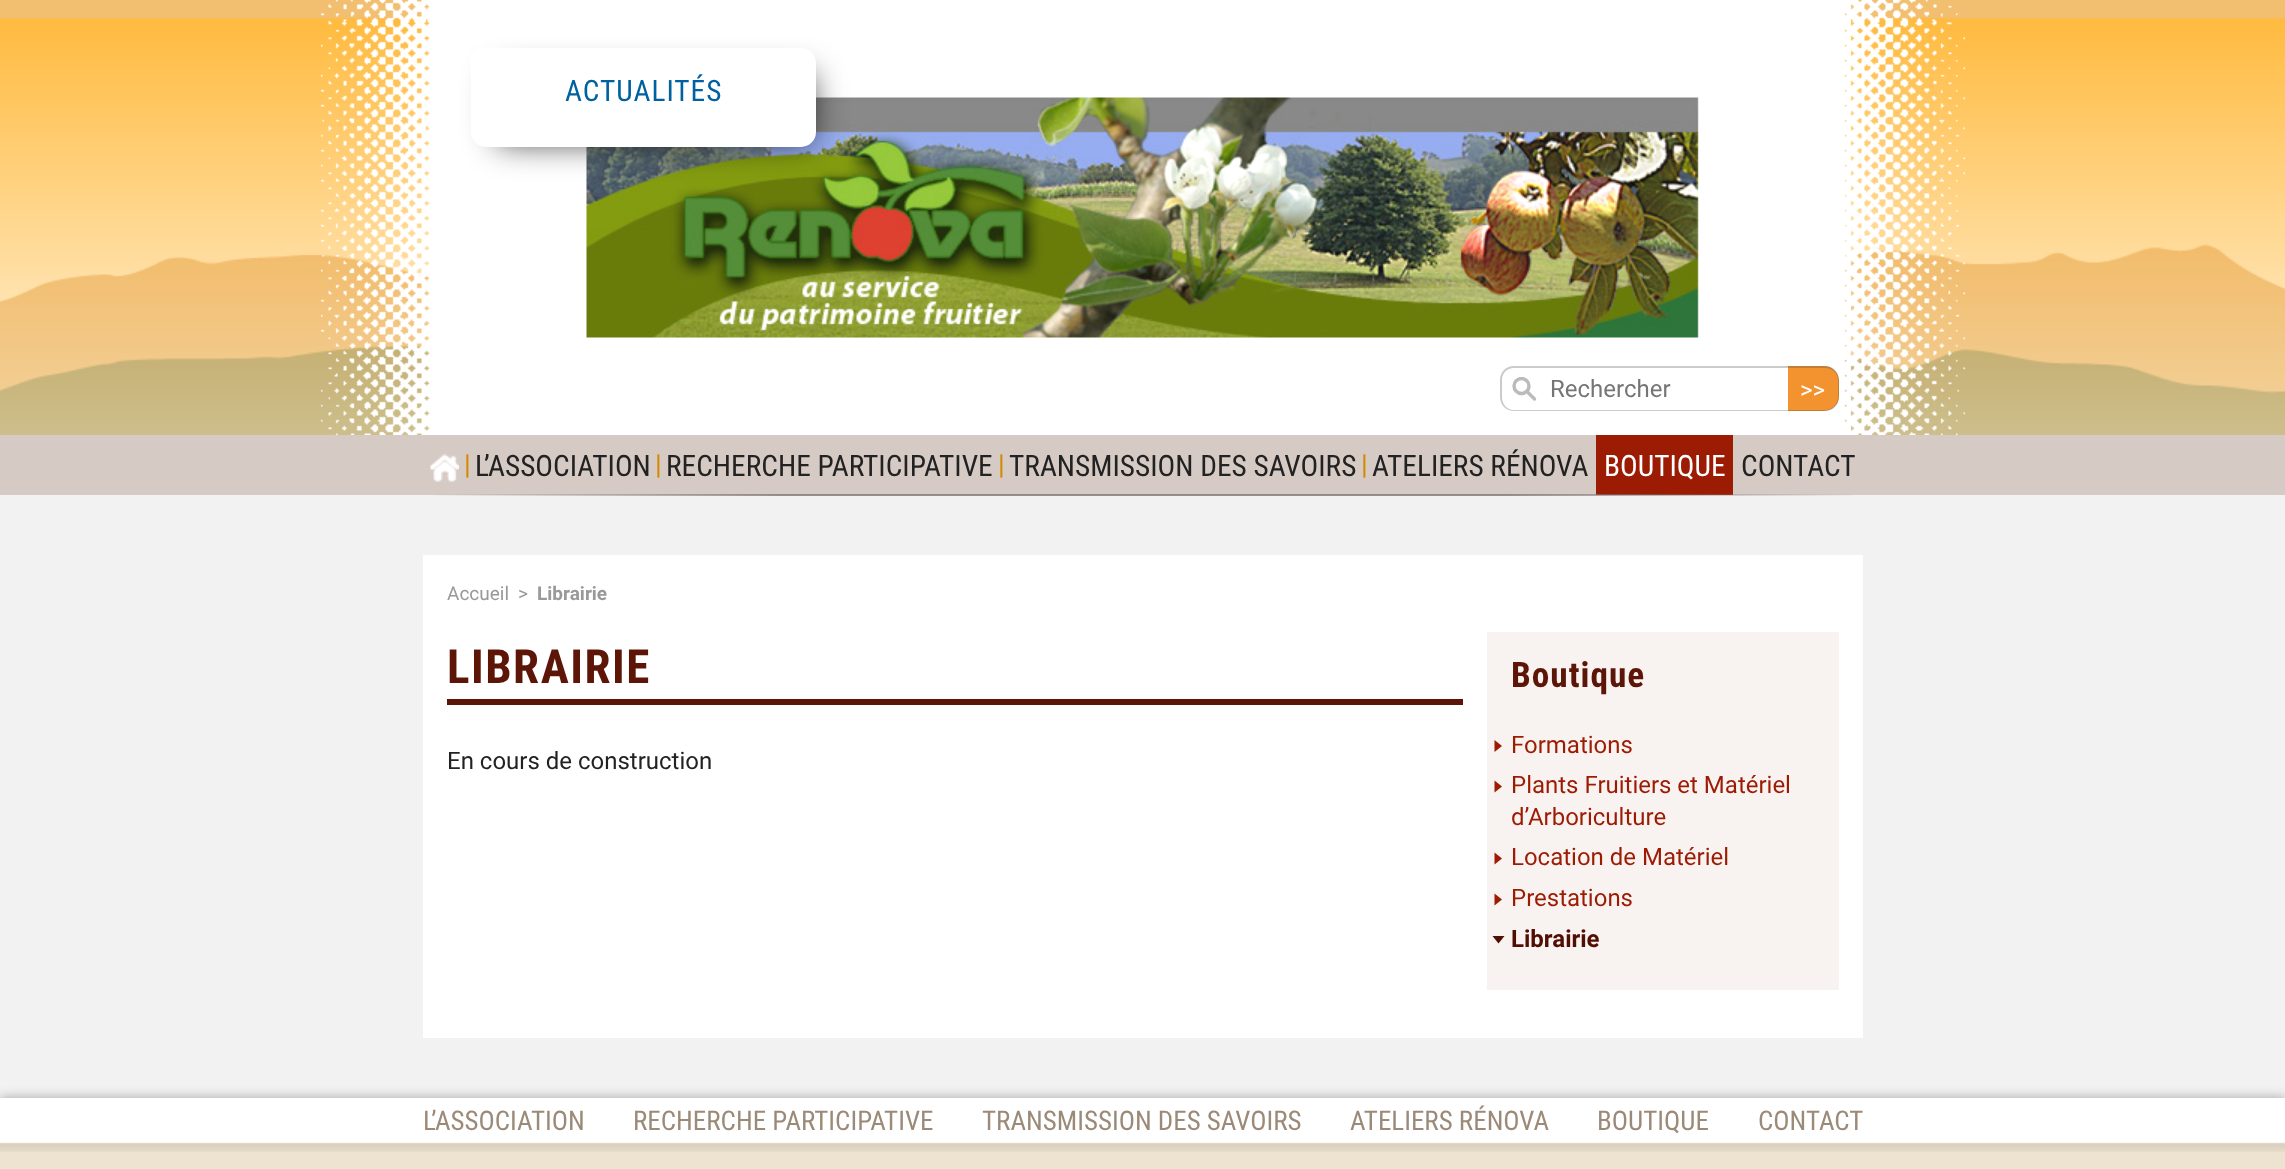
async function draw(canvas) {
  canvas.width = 2285
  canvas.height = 1169
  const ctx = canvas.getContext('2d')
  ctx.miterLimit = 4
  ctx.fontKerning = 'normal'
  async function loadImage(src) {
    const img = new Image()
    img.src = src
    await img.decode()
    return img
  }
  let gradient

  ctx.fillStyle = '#f2f2f2'
  ctx.fillRect(0, 0, 2285, 1169)
  ctx.fillStyle = '#f2be70'
  ctx.fillRect(0, 0, 2285, 20)
  ctx.drawImage(await loadImage('image0.png'), 0, 18, 2285, 417)
  ctx.drawImage(await loadImage('image1.png'), 321, 0, 1644, 435)
  ctx.fillStyle = '#000000bf'
  ctx.filter = 'blur(16px)'
  ctx.beginPath()
  ctx.rect(497, 74, 315, 69)
  ctx.fill()
  ctx.filter = 'none'
  ctx.fillStyle = '#fff'
  ctx.beginPath()
  ctx.roundRect(471, 48, 345, 99, 15)
  ctx.fill()
  ctx.letterSpacing = '1px'
  ctx.font = '30px Roboto Condensed'
  ctx.fillStyle = '#0061a1'
  ctx.fillText('ACTUALITÉS', 565, 101)
  ctx.fillStyle = '#d6cac4'
  ctx.fillRect(0, 435, 2285, 60)
  ctx.fillStyle = '#cbcbcb'
  ctx.beginPath()
  ctx.moveTo(1514, 366)
  ctx.lineTo(1788, 366)
  ctx.lineTo(1788, 411)
  ctx.lineTo(1514, 411)
  ctx.bezierCurveTo(1506, 411, 1500, 405, 1500, 397)
  ctx.lineTo(1500, 380)
  ctx.bezierCurveTo(1500, 372, 1506, 366, 1514, 366)
  ctx.closePath()
  ctx.moveTo(1514, 368)
  ctx.lineTo(1788, 368)
  ctx.lineTo(1788, 410)
  ctx.lineTo(1514, 410)
  ctx.bezierCurveTo(1507, 410, 1502, 404, 1502, 397)
  ctx.lineTo(1502, 380)
  ctx.bezierCurveTo(1502, 373, 1507, 368, 1514, 368)
  ctx.closePath()
  ctx.fill('evenodd')
  ctx.save()
  ctx.beginPath()
  ctx.rect(1512, 377, 24, 24)
  ctx.clip()
  ctx.beginPath()
  ctx.arc(1521.5, 386, 7.5, 0, 2 * Math.PI)
  ctx.strokeStyle = '#bbb'
  ctx.lineWidth = 3.4
  ctx.stroke()
  ctx.restore()
  ctx.beginPath()
  ctx.moveTo(1527, 391.5)
  ctx.lineTo(1534.5, 399)
  ctx.strokeStyle = '#bbb'
  ctx.lineWidth = 3.4
  ctx.lineCap = 'round'
  ctx.stroke()
  ctx.letterSpacing = '0px'
  ctx.font = '24px Roboto'
  ctx.fillStyle = '#757575'
  ctx.fillText('Rechercher', 1550, 397)
  ctx.fillStyle = '#f2932f'
  ctx.beginPath()
  ctx.roundRect(1788, 366, 51, 45, [0, 15, 15, 0])
  ctx.fill()
  ctx.fillStyle = '#5050504d'
  ctx.beginPath()
  ctx.moveTo(1788, 366)
  ctx.lineTo(1825, 366)
  ctx.bezierCurveTo(1833, 366, 1839, 372, 1839, 380)
  ctx.lineTo(1839, 397)
  ctx.bezierCurveTo(1839, 405, 1833, 411, 1825, 411)
  ctx.lineTo(1788, 411)
  ctx.closePath()
  ctx.moveTo(1788, 368)
  ctx.lineTo(1825, 368)
  ctx.bezierCurveTo(1832, 368, 1838, 373, 1838, 380)
  ctx.lineTo(1838, 397)
  ctx.bezierCurveTo(1838, 404, 1832, 410, 1825, 410)
  ctx.lineTo(1788, 410)
  ctx.closePath()
  ctx.fill('evenodd')
  ctx.fillStyle = '#fff'
  ctx.fillText('>>', 1800, 398)
  ctx.drawImage(await loadImage('image2.png'), 430, 454, 29, 28)
  ctx.font = '27.6px Roboto'
  ctx.fillStyle = '#d38800'
  ctx.fillText('|', 464, 474)
  ctx.font = '30px Roboto Condensed'
  ctx.fillStyle = '#222'
  ctx.fillText('L’ASSOCIATION', 475, 476)
  ctx.font = '27.6px Roboto'
  ctx.fillStyle = '#d38800'
  ctx.fillText('|', 655, 474)
  ctx.font = '30px Roboto Condensed'
  ctx.fillStyle = '#222'
  ctx.fillText('RECHERCHE PARTICIPATIVE', 666, 476)
  ctx.font = '27.6px Roboto'
  ctx.fillStyle = '#d38800'
  ctx.fillText('|', 998, 474)
  ctx.font = '30px Roboto Condensed'
  ctx.fillStyle = '#222'
  ctx.fillText('TRANSMISSION DES SAVOIRS', 1009, 476)
  ctx.font = '27.6px Roboto'
  ctx.fillStyle = '#d38800'
  ctx.fillText('|', 1361, 474)
  ctx.font = '30px Roboto Condensed'
  ctx.fillStyle = '#222'
  ctx.fillText('ATELIERS RÉNOVA', 1372, 476)
  ctx.fillStyle = '#9c1b03'
  ctx.fillRect(1596, 435, 137, 60)
  ctx.fillStyle = '#fff'
  ctx.fillText('BOUTIQUE', 1604, 476)
  ctx.fillStyle = '#222'
  ctx.fillText('CONTACT', 1741, 476)
  gradient = ctx.createLinearGradient(423, 494, 1863, 494)
  gradient.addColorStop(0, '#7f787400')
  gradient.addColorStop(0.25, '#7f7874cc')
  gradient.addColorStop(0.75, '#7f7874cc')
  gradient.addColorStop(1, '#7f787400')
  ctx.fillStyle = gradient
  ctx.fillRect(433, 494, 1420, 2)
  ctx.fillStyle = '#fff'
  ctx.fillRect(423, 555, 1440, 483)
  ctx.font = '19px Roboto'
  ctx.fillStyle = '#999'
  ctx.fillText('Accueil', 447, 600)
  ctx.fillText('>', 518, 600)
  ctx.font = 'bold 19px Roboto'
  ctx.fillText('Librairie', 537, 600)
  ctx.fillStyle = '#5d1508'
  ctx.fillRect(447, 699, 1016, 6)
  ctx.letterSpacing = '1.5px'
  ctx.font = 'bold 48px Roboto Condensed'
  ctx.fillText('LIBRAIRIE', 447, 683)
  ctx.letterSpacing = '0px'
  ctx.font = '24px Roboto'
  ctx.fillStyle = '#222'
  ctx.fillText('En cours de construction', 447, 769)
  ctx.fillStyle = '#f8f2f0'
  ctx.fillRect(1487, 632, 352, 358)
  ctx.letterSpacing = '1px'
  ctx.font = 'bold 36px Roboto Condensed'
  ctx.fillStyle = '#5d1508'
  ctx.fillText('Boutique', 1511, 687)
  ctx.fillStyle = '#9c1b03'
  ctx.beginPath()
  ctx.moveTo(1494.5, 752)
  ctx.lineTo(1494.5, 740)
  ctx.lineTo(1502, 746)
  ctx.closePath()
  ctx.fill()
  ctx.letterSpacing = '0px'
  ctx.font = '24px Roboto'
  ctx.fillText('Formations', 1511, 753)
  ctx.beginPath()
  ctx.moveTo(1494.5, 792.5)
  ctx.lineTo(1494.5, 780.5)
  ctx.lineTo(1502, 786.5)
  ctx.closePath()
  ctx.fill()
  ctx.fillText('Plants Fruitiers et Matériel', 1511, 793)
  ctx.fillText('d’Arboriculture', 1511, 825)
  ctx.beginPath()
  ctx.moveTo(1494.5, 864.5)
  ctx.lineTo(1494.5, 852.5)
  ctx.lineTo(1502, 858.5)
  ctx.closePath()
  ctx.fill()
  ctx.fillText('Location de Matériel', 1511, 865)
  ctx.beginPath()
  ctx.moveTo(1494.5, 905.5)
  ctx.lineTo(1494.5, 893.5)
  ctx.lineTo(1502, 899.5)
  ctx.closePath()
  ctx.fill()
  ctx.fillText('Prestations', 1511, 906)
  ctx.fillStyle = '#510e02'
  ctx.beginPath()
  ctx.moveTo(1492.5, 936)
  ctx.lineTo(1504.5, 936)
  ctx.lineTo(1498.5, 943.5)
  ctx.closePath()
  ctx.fill()
  ctx.font = 'bold 24px Roboto'
  ctx.fillText('Librairie', 1511, 947)
  ctx.fillStyle = '#00000054'
  ctx.filter = 'blur(6px)'
  ctx.beginPath()
  ctx.rect(0, 1098, 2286, 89)
  ctx.fill()
  ctx.filter = 'none'
  ctx.fillStyle = '#eee2d0'
  ctx.fillRect(0, 1142, 2285, 27)
  ctx.drawImage(await loadImage('image3.png'), 0, 1098, 2285, 54)
  ctx.font = '27.6px Roboto Condensed'
  ctx.fillStyle = '#9c8a79'
  ctx.fillText('L’ASSOCIATION', 423, 1130)
  ctx.fillText('RECHERCHE PARTICIPATIVE', 633, 1130)
  ctx.fillText('TRANSMISSION DES SAVOIRS', 982, 1130)
  ctx.fillText('ATELIERS RÉNOVA', 1350, 1130)
  ctx.fillText('BOUTIQUE', 1597, 1130)
  ctx.fillText('CONTACT', 1758, 1130)
}

draw(document.querySelector('canvas'))
